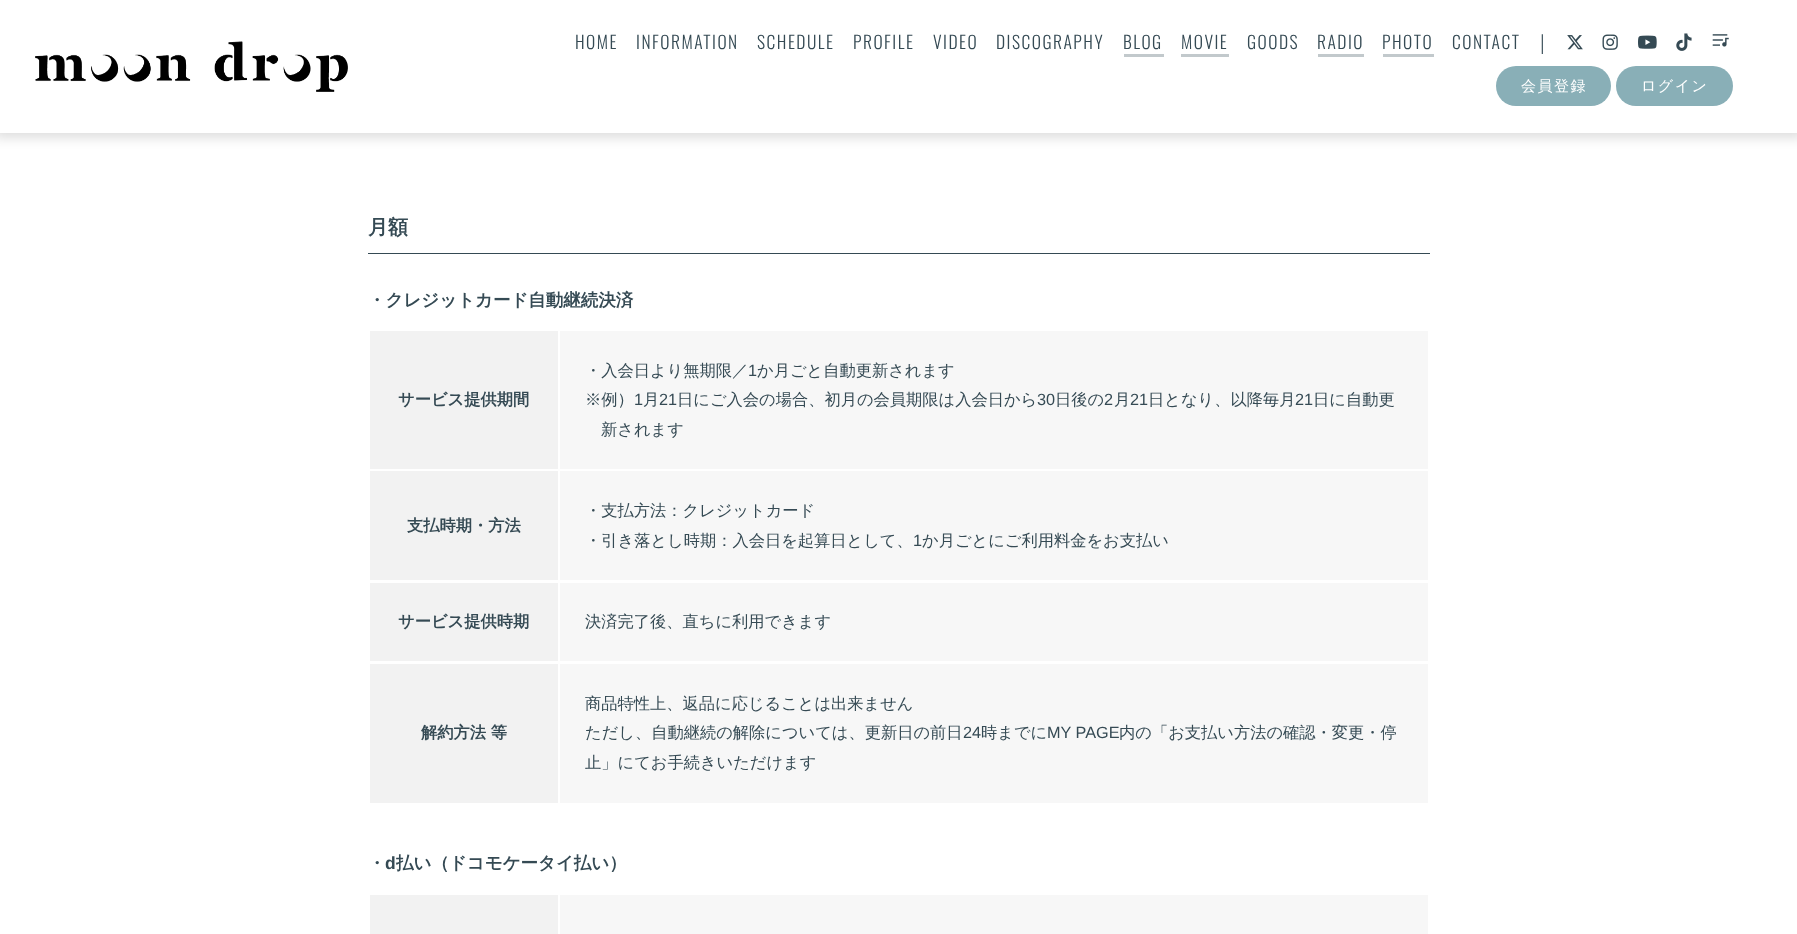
async function draw(canvas) {
  canvas.width = 1797
  canvas.height = 934
  const ctx = canvas.getContext('2d')
  ctx.miterLimit = 4
  ctx.fontKerning = 'normal'
  async function loadImage(src) {
    const img = new Image()
    img.src = src
    await img.decode()
    return img
  }

  ctx.fillStyle = '#fff'
  ctx.fillRect(0, 0, 1797, 934)
  ctx.fillStyle = '#00000021'
  ctx.filter = 'blur(6px)'
  ctx.beginPath()
  ctx.rect(-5, -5, 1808, 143)
  ctx.fill()
  ctx.filter = 'none'
  ctx.fillStyle = '#fff'
  ctx.fillRect(0, 0, 1797, 133)
  ctx.drawImage(await loadImage('image0.png'), 35, 41, 313, 51)
  ctx.letterSpacing = '1.5px'
  ctx.font = '300 17.5px Oswald'
  ctx.fillStyle = '#354a54'
  ctx.fillText('HOME', 575, 49)
  ctx.fillText('INFORMATION', 636, 49)
  ctx.fillText('SCHEDULE', 757, 49)
  ctx.fillText('PROFILE', 853, 49)
  ctx.fillText('VIDEO', 933, 49)
  ctx.fillText('DISCOGRAPHY', 996, 49)
  ctx.fillText('BLOG', 1123, 49)
  ctx.fillStyle = '#c2c9cc'
  ctx.fillRect(1124, 54, 40, 3)
  ctx.fillStyle = '#354a54'
  ctx.fillText('MOVIE', 1181, 49)
  ctx.fillStyle = '#c2c9cc'
  ctx.fillRect(1181, 54, 48, 3)
  ctx.fillStyle = '#354a54'
  ctx.fillText('GOODS', 1247, 49)
  ctx.fillText('RADIO', 1317, 49)
  ctx.fillStyle = '#c2c9cc'
  ctx.fillRect(1318, 54, 46, 3)
  ctx.fillStyle = '#354a54'
  ctx.fillText('PHOTO', 1382, 49)
  ctx.fillStyle = '#c2c9cc'
  ctx.fillRect(1383, 54, 51, 3)
  ctx.fillStyle = '#354a54'
  ctx.fillText('CONTACT', 1452, 49)
  ctx.letterSpacing = '1px'
  ctx.font = '16.25px Liberation Sans'
  ctx.fillText('│', 1538, 49)
  ctx.drawImage(await loadImage('image1.png'), 1567, 35, 16, 15)
  ctx.drawImage(await loadImage('image2.png'), 1602, 34, 16, 16)
  ctx.drawImage(await loadImage('image3.png'), 1638, 35, 19, 14)
  ctx.drawImage(await loadImage('image4.png'), 1676, 33, 16, 18)
  ctx.drawImage(await loadImage('image5.png'), 1712, 34, 17, 13)
  ctx.fillStyle = '#89afb7'
  ctx.beginPath()
  ctx.roundRect(1496, 66, 115, 40, 20)
  ctx.fill()
  ctx.letterSpacing = '1.5px'
  ctx.font = '500 15px WenQuanYi Zen Hei'
  ctx.fillStyle = '#fff'
  ctx.fillText('会員登録', 1521, 91)
  ctx.fillStyle = '#89afb7'
  ctx.beginPath()
  ctx.roundRect(1616, 66, 117, 40, 20)
  ctx.fill()
  ctx.fillStyle = '#fff'
  ctx.fillText('ログイン', 1641, 91)
  ctx.fillStyle = '#354a54'
  ctx.fillRect(368, 253, 1062, 1)
  ctx.letterSpacing = '0px'
  ctx.font = 'bold 20px WenQuanYi Zen Hei'
  ctx.fillText('月額', 368, 234)
  ctx.font = 'bold 17.5px WenQuanYi Zen Hei'
  ctx.fillText('・クレジットカード自動継続決済', 368, 306)
  ctx.fillStyle = '#f2f2f2'
  ctx.fillRect(370, 331, 188, 138)
  ctx.font = 'bold 16.25px WenQuanYi Zen Hei'
  ctx.fillStyle = '#354a54'
  ctx.fillText('サービス提供期間', 398, 405)
  ctx.fillStyle = '#f7f7f7'
  ctx.fillRect(560, 331, 868, 138)
  ctx.font = '500 16.25px WenQuanYi Zen Hei'
  ctx.fillStyle = '#354a54'
  ctx.fillText('・入会日より無期限／', 585, 376)
  ctx.font = '16.25px Liberation Sans'
  ctx.fillText('1', 748, 376)
  ctx.font = '500 16.25px WenQuanYi Zen Hei'
  ctx.fillText('か月ごと自動更新されます', 757, 376)
  ctx.fillText('※例）', 585, 405)
  ctx.font = '16.25px Liberation Sans'
  ctx.fillText('1', 634, 405)
  ctx.font = '500 16.25px WenQuanYi Zen Hei'
  ctx.fillText('月', 643, 405)
  ctx.font = '16.25px Liberation Sans'
  ctx.fillText('21', 659, 405)
  ctx.font = '500 16.25px WenQuanYi Zen Hei'
  ctx.fillText('日にご入会の場合、初月の会員期限は入会日から', 677, 405)
  ctx.font = '16.25px Liberation Sans'
  ctx.fillText('30', 1037, 405)
  ctx.font = '500 16.25px WenQuanYi Zen Hei'
  ctx.fillText('日後の', 1055, 405)
  ctx.font = '16.25px Liberation Sans'
  ctx.fillText('2', 1104, 405)
  ctx.font = '500 16.25px WenQuanYi Zen Hei'
  ctx.fillText('月', 1114, 405)
  ctx.font = '16.25px Liberation Sans'
  ctx.fillText('21', 1130, 405)
  ctx.font = '500 16.25px WenQuanYi Zen Hei'
  ctx.fillText('日となり、以降毎月', 1148, 405)
  ctx.font = '16.25px Liberation Sans'
  ctx.fillText('21', 1295, 405)
  ctx.font = '500 16.25px WenQuanYi Zen Hei'
  ctx.fillText('日に自動更', 1313, 405)
  ctx.fillText('新されます', 601, 435)
  ctx.fillStyle = '#f2f2f2'
  ctx.fillRect(370, 471, 188, 109)
  ctx.font = 'bold 16.25px WenQuanYi Zen Hei'
  ctx.fillStyle = '#354a54'
  ctx.fillText('支払時期・方法', 407, 531)
  ctx.fillStyle = '#f7f7f7'
  ctx.fillRect(560, 471, 868, 109)
  ctx.font = '500 16.25px WenQuanYi Zen Hei'
  ctx.fillStyle = '#354a54'
  ctx.fillText('・支払方法：クレジットカード', 585, 516)
  ctx.fillText('・引き落とし時期：入会日を起算日として、', 585, 546)
  ctx.font = '16.25px Liberation Sans'
  ctx.fillText('1', 913, 546)
  ctx.font = '500 16.25px WenQuanYi Zen Hei'
  ctx.fillText('か月ごとにご利用料金をお支払い', 922, 546)
  ctx.fillStyle = '#f2f2f2'
  ctx.fillRect(370, 583, 188, 78)
  ctx.font = 'bold 16.25px WenQuanYi Zen Hei'
  ctx.fillStyle = '#354a54'
  ctx.fillText('サービス提供時期', 398, 627)
  ctx.fillStyle = '#f7f7f7'
  ctx.fillRect(560, 583, 868, 78)
  ctx.font = '500 16.25px WenQuanYi Zen Hei'
  ctx.fillStyle = '#354a54'
  ctx.fillText('決済完了後、直ちに利用できます', 585, 627)
  ctx.fillStyle = '#f2f2f2'
  ctx.fillRect(370, 664, 188, 139)
  ctx.font = 'bold 16.25px WenQuanYi Zen Hei'
  ctx.fillStyle = '#354a54'
  ctx.fillText('解約方法 等', 421, 738)
  ctx.fillStyle = '#f7f7f7'
  ctx.fillRect(560, 664, 868, 139)
  ctx.font = '500 16.25px WenQuanYi Zen Hei'
  ctx.fillStyle = '#354a54'
  ctx.fillText('商品特性上、返品に応じることは出来ません', 585, 709)
  ctx.fillText('ただし、自動継続の解除については、更新日の前日', 585, 738)
  ctx.font = '16.25px Liberation Sans'
  ctx.fillText('24', 963, 738)
  ctx.font = '500 16.25px WenQuanYi Zen Hei'
  ctx.fillText('時までに', 981, 738)
  ctx.font = '16.25px Liberation Sans'
  ctx.fillText('MY PAGE', 1047, 738)
  ctx.font = '500 16.25px WenQuanYi Zen Hei'
  ctx.fillText('内の「お支払い方法の確認・変更・停', 1119, 738)
  ctx.fillText('止」にてお手続きいただけます', 585, 768)
  ctx.font = 'bold 17.5px WenQuanYi Zen Hei'
  ctx.fillText('・', 368, 869)
  ctx.font = 'bold 17.5px Liberation Sans'
  ctx.fillText('d', 385, 869)
  ctx.font = 'bold 17.5px WenQuanYi Zen Hei'
  ctx.fillText('払い（ドコモケータイ払い）', 396, 869)
  ctx.fillStyle = '#f2f2f2'
  ctx.fillRect(370, 895, 188, 39)
  ctx.fillStyle = '#f7f7f7'
  ctx.fillRect(560, 895, 868, 39)
}

draw(document.querySelector('canvas'))
